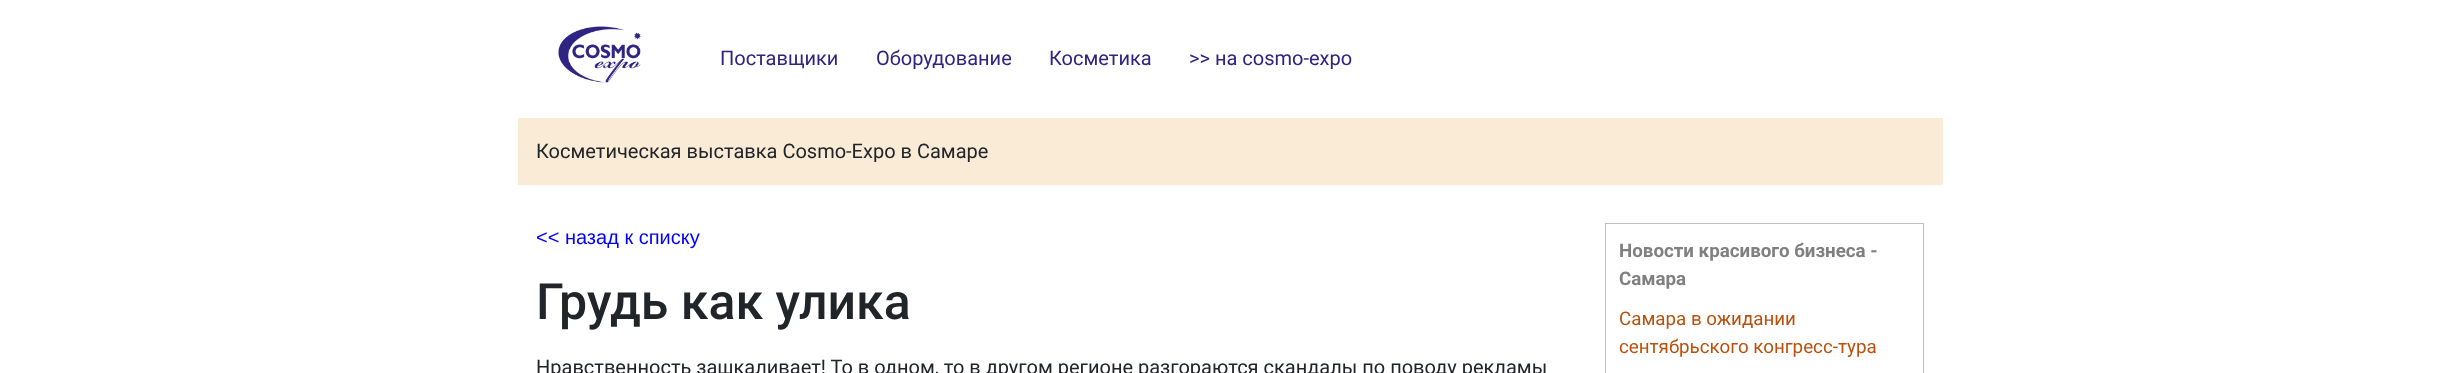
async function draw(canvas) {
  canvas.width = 2460
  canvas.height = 373
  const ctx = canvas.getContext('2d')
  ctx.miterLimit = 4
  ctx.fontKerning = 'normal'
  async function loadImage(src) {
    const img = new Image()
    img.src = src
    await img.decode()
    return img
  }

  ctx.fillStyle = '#fff'
  ctx.fillRect(0, 0, 2460, 373)
  ctx.drawImage(await loadImage('image0.png'), 558, 26, 83, 57)
  ctx.font = '20px Roboto'
  ctx.fillStyle = '#2f2482'
  ctx.fillText('Поставщики', 720, 65)
  ctx.fillText('Оборудование', 876, 65)
  ctx.fillText('Косметика', 1049, 65)
  ctx.fillText('>> на cosmo-expo', 1189, 65)
  ctx.fillStyle = '#faebd7'
  ctx.fillRect(518, 118, 1425, 67)
  ctx.fillStyle = '#212529'
  ctx.fillText('Косметическая выставка Cosmo-Expo в Самаре', 536, 158)
  ctx.font = '20px Liberation Sans'
  ctx.fillStyle = '#00f'
  ctx.fillText('<< назад к списку', 536, 244)
  ctx.font = '500 50px Roboto'
  ctx.fillStyle = '#212529'
  ctx.fillText('Грудь как улика', 536, 319)
  ctx.font = '20px Roboto'
  ctx.fillText('Нравственность зашкаливает! То в одном, то в другом регионе разгораются скандалы по поводу рекламы', 536, 374)
  ctx.strokeStyle = '#c0c0c0'
  ctx.strokeRect(1605.5, 223.5, 318, 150)
  ctx.font = 'bold 18.75px Roboto'
  ctx.fillStyle = '#808080'
  ctx.fillText('Новости красивого бизнеса -', 1619, 257)
  ctx.fillText('Самара', 1619, 285)
  ctx.font = '18.75px Roboto'
  ctx.fillStyle = '#b9510c'
  ctx.fillText('Самара в ожидании', 1619, 325)
  ctx.fillText('сентябрьского конгресс-тура', 1619, 353)
}

draw(document.querySelector('canvas'))
